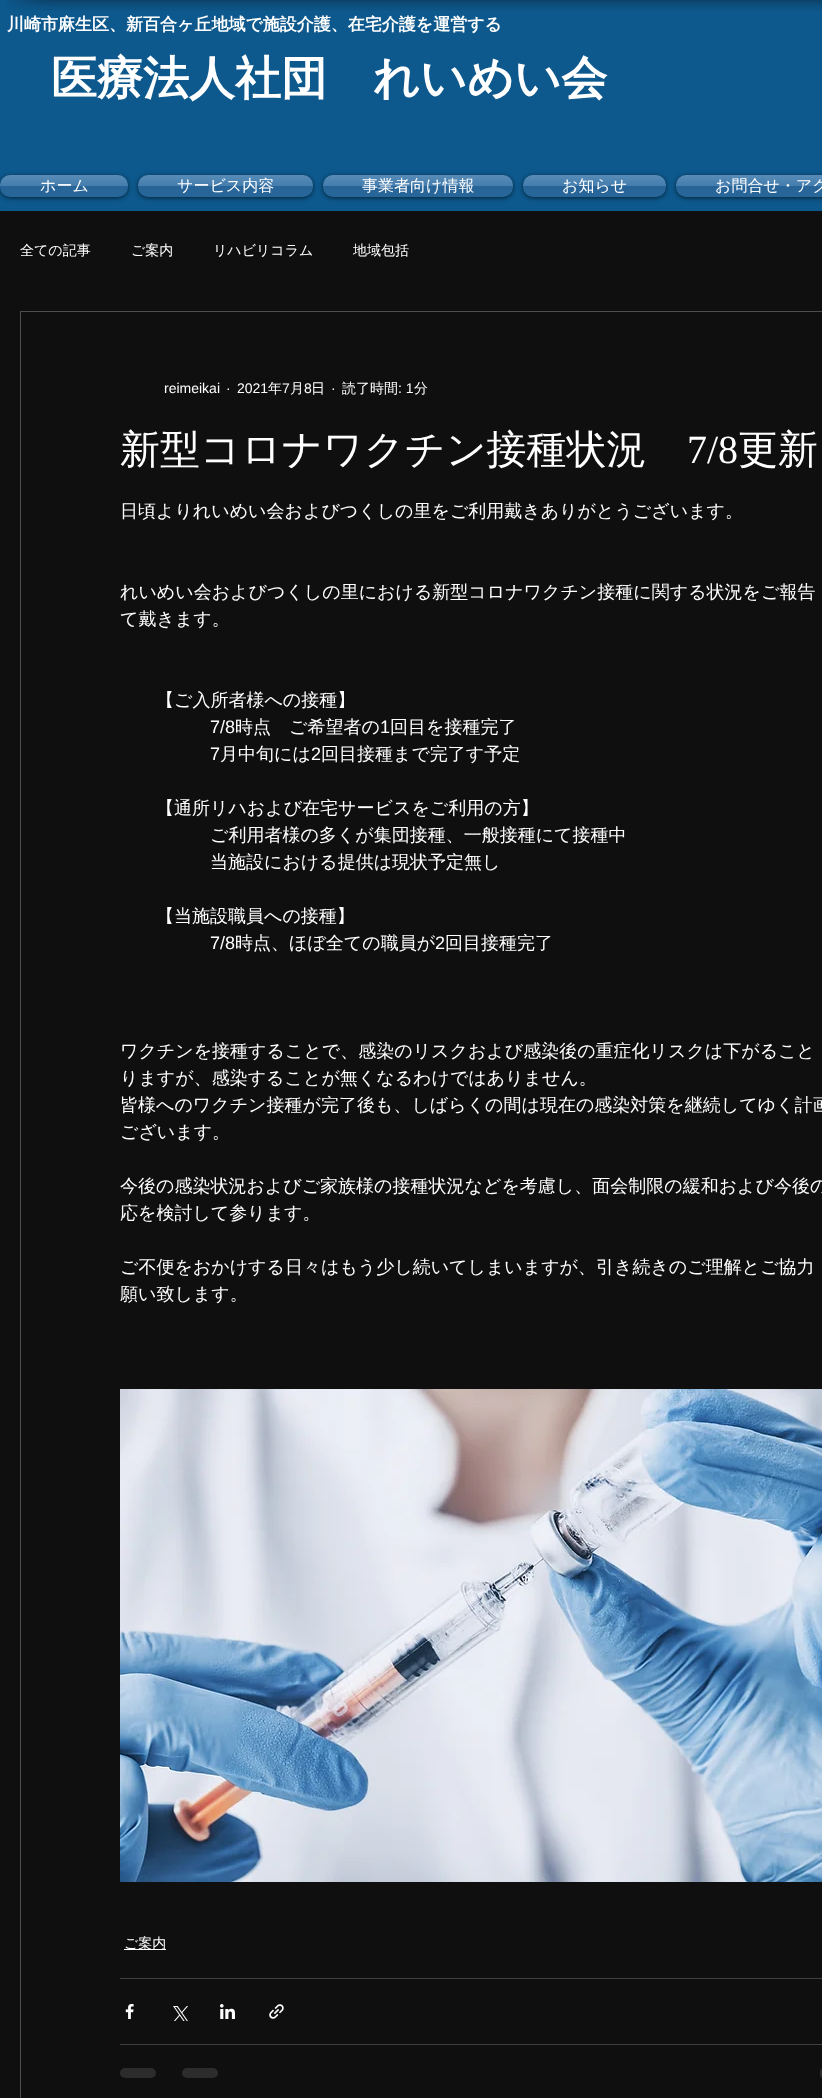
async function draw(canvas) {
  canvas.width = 822
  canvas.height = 2098
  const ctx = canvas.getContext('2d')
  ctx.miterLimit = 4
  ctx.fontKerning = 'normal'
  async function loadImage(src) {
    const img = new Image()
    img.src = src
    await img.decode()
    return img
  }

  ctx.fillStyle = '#0d588c'
  ctx.fillRect(0, 0, 822, 2098)
  ctx.drawImage(await loadImage('image0.png'), 5, 0, 95, 11)
  ctx.drawImage(await loadImage('image1.png'), 100, 0, 722, 11)
  ctx.font = 'bold 17px WenQuanYi Zen Hei'
  ctx.fillStyle = '#fff'
  ctx.fillText('川崎市麻生区、新百合ヶ丘地域で施設介護、在宅介護を運営する', 7, 30)
  ctx.font = 'bold 46px WenQuanYi Zen Hei'
  ctx.fillText('医療法人社団　れいめい会', 51, 94)
  ctx.fillStyle = '#00000099'
  ctx.filter = 'blur(2px)'
  ctx.beginPath()
  ctx.roundRect(0, 176, 128, 22, 10)
  ctx.fill()
  ctx.filter = 'none'
  ctx.fillStyle = '#2b6ca3'
  ctx.beginPath()
  ctx.roundRect(0, 175, 128, 22, 10)
  ctx.fill()
  ctx.drawImage(await loadImage('image2.png'), 0, 175, 128, 22)
  ctx.font = '500 16px WenQuanYi Zen Hei'
  ctx.fillStyle = '#fff'
  ctx.fillText('ホーム', 40, 191)
  ctx.fillStyle = '#00000099'
  ctx.filter = 'blur(2px)'
  ctx.beginPath()
  ctx.roundRect(138, 176, 175, 22, 10)
  ctx.fill()
  ctx.filter = 'none'
  ctx.fillStyle = '#2b6ca3'
  ctx.beginPath()
  ctx.roundRect(138, 175, 175, 22, 10)
  ctx.fill()
  ctx.drawImage(await loadImage('image3.png'), 138, 175, 175, 22)
  ctx.fillStyle = '#fff'
  ctx.fillText('サービス内容', 177, 191)
  ctx.fillStyle = '#00000099'
  ctx.filter = 'blur(2px)'
  ctx.beginPath()
  ctx.roundRect(323, 176, 190, 22, 10)
  ctx.fill()
  ctx.filter = 'none'
  ctx.fillStyle = '#2b6ca3'
  ctx.beginPath()
  ctx.roundRect(323, 175, 190, 22, 10)
  ctx.fill()
  ctx.drawImage(await loadImage('image4.png'), 323, 175, 190, 22)
  ctx.fillStyle = '#fff'
  ctx.fillText('事業者向け情報', 362, 191)
  ctx.fillStyle = '#00000099'
  ctx.filter = 'blur(2px)'
  ctx.beginPath()
  ctx.roundRect(523, 176, 143, 22, 10)
  ctx.fill()
  ctx.filter = 'none'
  ctx.fillStyle = '#2b6ca3'
  ctx.beginPath()
  ctx.roundRect(523, 175, 143, 22, 10)
  ctx.fill()
  ctx.drawImage(await loadImage('image5.png'), 523, 175, 143, 22)
  ctx.fillStyle = '#fff'
  ctx.fillText('お知らせ', 562, 191)
  ctx.fillStyle = '#00000099'
  ctx.filter = 'blur(2px)'
  ctx.beginPath()
  ctx.roundRect(676, 176, 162, 22, 10)
  ctx.fill()
  ctx.filter = 'none'
  ctx.fillStyle = '#2b6ca3'
  ctx.beginPath()
  ctx.roundRect(676, 175, 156, 22, 10)
  ctx.fill()
  ctx.drawImage(await loadImage('image6.png'), 676, 175, 146, 22)
  ctx.fillStyle = '#fff'
  ctx.fillText('お問合せ・アク', 715, 191)
  ctx.fillStyle = '#0f0f0f'
  ctx.fillRect(0, 211, 822, 1887)
  ctx.font = '500 14px WenQuanYi Zen Hei'
  ctx.fillStyle = '#fff'
  ctx.fillText('全ての記事', 20, 255)
  ctx.fillText('ご案内', 131, 255)
  ctx.fillText('リハビリコラム', 213, 255)
  ctx.fillText('地域包括', 353, 255)
  ctx.strokeStyle = '#4e4e4e'
  ctx.strokeRect(20.5, 311.5, 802, 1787)
  ctx.font = '14px Liberation Sans'
  ctx.fillText('reimeikai', 164, 393)
  ctx.fillText('·', 226, 393)
  ctx.fillText('2021', 237, 393)
  ctx.font = '500 14px WenQuanYi Zen Hei'
  ctx.fillText('年', 268, 393)
  ctx.font = '14px Liberation Sans'
  ctx.fillText('7', 282, 393)
  ctx.font = '500 14px WenQuanYi Zen Hei'
  ctx.fillText('月', 290, 393)
  ctx.font = '14px Liberation Sans'
  ctx.fillText('8', 304, 393)
  ctx.font = '500 14px WenQuanYi Zen Hei'
  ctx.fillText('日', 311, 393)
  ctx.font = '14px Liberation Sans'
  ctx.fillText('·', 331, 393)
  ctx.font = '500 14px WenQuanYi Zen Hei'
  ctx.fillText('読了時間', 342, 393)
  ctx.font = '14px Liberation Sans'
  ctx.fillText(': 1', 398, 393)
  ctx.font = '500 14px WenQuanYi Zen Hei'
  ctx.fillText('分', 414, 393)
  ctx.font = '500 40px WenQuanYi Zen Hei'
  ctx.fillText('新型コロナワクチン接種状況', 120, 463)
  ctx.font = '40px Liberation Serif'
  ctx.fillText('7/8', 687, 463)
  ctx.font = '500 40px WenQuanYi Zen Hei'
  ctx.fillText('更新', 738, 463)
  ctx.font = '500 18px WenQuanYi Zen Hei'
  ctx.fillText('日頃よりれいめい会およびつくしの里をご利用戴きありがとうございます。', 120, 517)
  ctx.fillText('れいめい会およびつくしの里における新型コロナワクチン接種に関する状況をご報告', 120, 598)
  ctx.fillText('て戴きます。', 120, 625)
  ctx.fillText('【ご入所者様への接種】', 156, 706)
  ctx.font = '18px Liberation Sans'
  ctx.fillText('7/8', 210, 733)
  ctx.font = '500 18px WenQuanYi Zen Hei'
  ctx.fillText('時点　ご希望者の', 235, 733)
  ctx.font = '18px Liberation Sans'
  ctx.fillText('1', 380, 733)
  ctx.font = '500 18px WenQuanYi Zen Hei'
  ctx.fillText('回目を接種完了', 390, 733)
  ctx.font = '18px Liberation Sans'
  ctx.fillText('7', 210, 760)
  ctx.font = '500 18px WenQuanYi Zen Hei'
  ctx.fillText('月中旬には', 220, 760)
  ctx.font = '18px Liberation Sans'
  ctx.fillText('2', 311, 760)
  ctx.font = '500 18px WenQuanYi Zen Hei'
  ctx.fillText('回目接種まで完了す予定', 321, 760)
  ctx.fillText('【通所リハおよび在宅サービスをご利用の方】', 156, 814)
  ctx.fillText('ご利用者様の多くが集団接種、一般接種にて接種中', 210, 841)
  ctx.fillText('当施設における提供は現状予定無し', 210, 868)
  ctx.fillText('【当施設職員への接種】', 156, 922)
  ctx.font = '18px Liberation Sans'
  ctx.fillText('7/8', 210, 949)
  ctx.font = '500 18px WenQuanYi Zen Hei'
  ctx.fillText('時点、ほぼ全ての職員が', 235, 949)
  ctx.font = '18px Liberation Sans'
  ctx.fillText('2', 435, 949)
  ctx.font = '500 18px WenQuanYi Zen Hei'
  ctx.fillText('回目接種完了', 445, 949)
  ctx.fillText('ワクチンを接種することで、感染のリスクおよび感染後の重症化リスクは下がること', 120, 1057)
  ctx.fillText('りますが、感染することが無くなるわけではありません。', 120, 1084)
  ctx.fillText('皆様へのワクチン接種が完了後も、しばらくの間は現在の感染対策を継続してゆく計画', 120, 1111)
  ctx.fillText('ございます。', 120, 1138)
  ctx.fillText('今後の感染状況およびご家族様の接種状況などを考慮し、面会制限の緩和および今後の', 120, 1192)
  ctx.fillText('応を検討して参ります。', 120, 1219)
  ctx.fillText('ご不便をおかけする日々はもう少し続いてしまいますが、引き続きのご理解とご協力', 120, 1273)
  ctx.fillText('願い致します。', 120, 1300)
  ctx.drawImage(await loadImage('image7.png'), 120, 1389, 702, 493)
  ctx.fillRect(124, 1949, 42, 1)
  ctx.font = '500 14px WenQuanYi Zen Hei'
  ctx.fillText('ご案内', 124, 1948)
  ctx.fillStyle = '#3f3f3f'
  ctx.fillRect(120, 1978, 702, 1)
  ctx.drawImage(await loadImage('image8.png'), 125, 2004, 9, 15)
  ctx.drawImage(await loadImage('image9.png'), 173, 2006, 15, 15)
  ctx.drawImage(await loadImage('image10.png'), 220, 2004, 15, 15)
  ctx.drawImage(await loadImage('image11.png'), 269, 2004, 15, 15)
  ctx.fillRect(120, 2044, 702, 1)
  ctx.fillStyle = '#2c2c2c'
  ctx.beginPath()
  ctx.roundRect(120, 2068, 36, 10, 5)
  ctx.fill()
  ctx.beginPath()
  ctx.roundRect(182, 2068, 36, 10, 5)
  ctx.fill()
  ctx.beginPath()
  ctx.roundRect(820, 2068, 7, 10, 5)
  ctx.fill()
}

draw(document.querySelector('canvas'))
